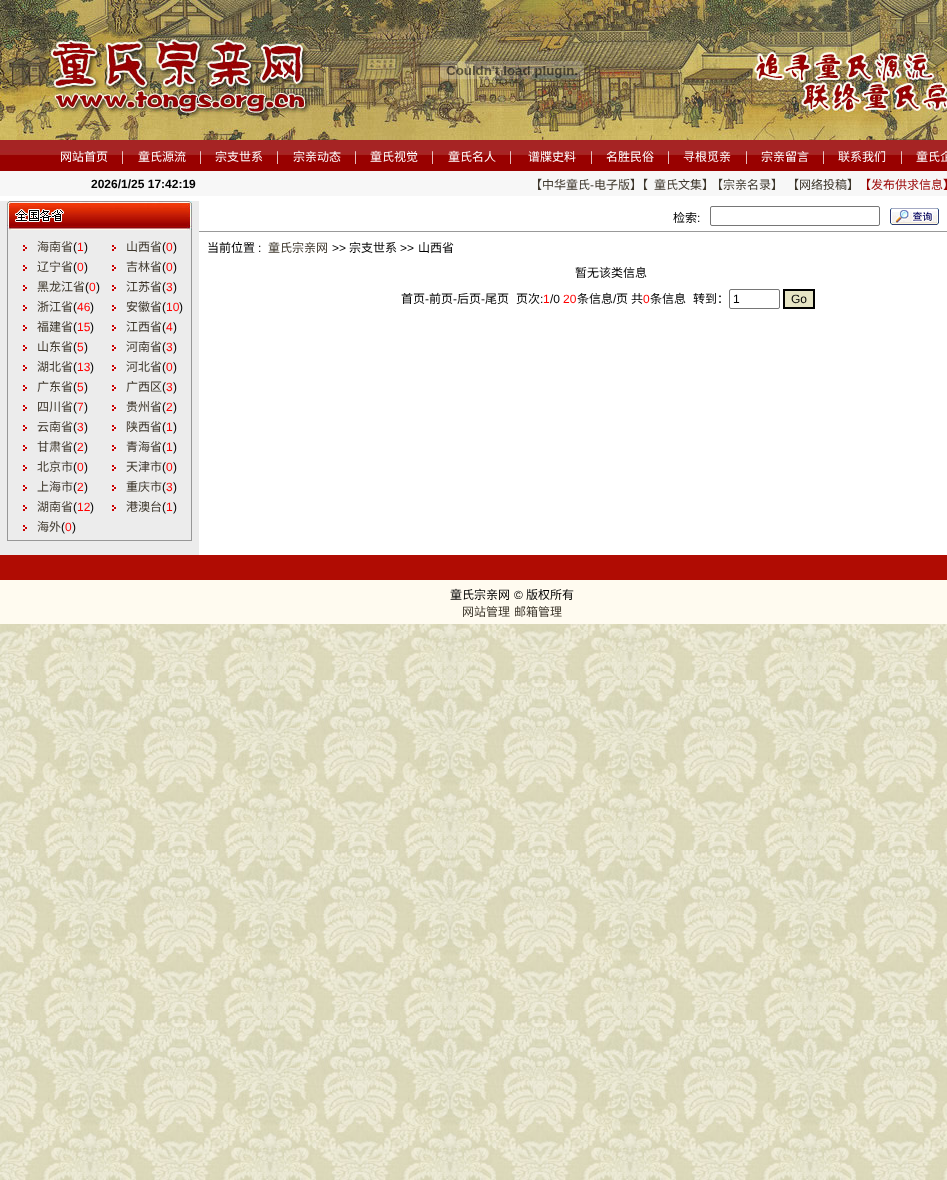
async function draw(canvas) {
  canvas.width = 947
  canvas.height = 1180
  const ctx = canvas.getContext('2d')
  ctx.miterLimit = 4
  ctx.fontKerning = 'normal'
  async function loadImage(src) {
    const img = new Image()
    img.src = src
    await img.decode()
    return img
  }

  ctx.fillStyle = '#fff'
  ctx.fillRect(0, 0, 947, 1180)
  ctx.drawImage(await loadImage('image0.png'), 0, 624, 947, 556)
  ctx.drawImage(await loadImage('image1.png'), 0, 0, 947, 140)
  ctx.drawImage(await loadImage('image2.png'), 440, 61, 144, 18)
  ctx.drawImage(await loadImage('image3.png'), 0, 140, 947, 31)
  ctx.font = '12px Noto Sans CJK SC'
  ctx.fillText('网站首页', 60, 161)
  ctx.font = '14px Liberation Serif'
  ctx.fillText('|', 121, 161)
  ctx.font = '12px Noto Sans CJK SC'
  ctx.fillText('童氏源流', 138, 161)
  ctx.font = '14px Liberation Serif'
  ctx.fillText('|', 199, 161)
  ctx.font = '12px Noto Sans CJK SC'
  ctx.fillText('宗支世系', 215, 161)
  ctx.font = '14px Liberation Serif'
  ctx.fillText('|', 276, 161)
  ctx.font = '12px Noto Sans CJK SC'
  ctx.fillText('宗亲动态', 293, 161)
  ctx.font = '14px Liberation Serif'
  ctx.fillText('|', 354, 161)
  ctx.font = '12px Noto Sans CJK SC'
  ctx.fillText('童氏视觉', 370, 161)
  ctx.font = '14px Liberation Serif'
  ctx.fillText('|', 431, 161)
  ctx.font = '12px Noto Sans CJK SC'
  ctx.fillText('童氏名人', 448, 161)
  ctx.font = '14px Liberation Serif'
  ctx.fillText('|', 509, 161)
  ctx.font = '12px Noto Sans CJK SC'
  ctx.fillText('谱牒史料', 528, 161)
  ctx.font = '14px Liberation Serif'
  ctx.fillText('|', 590, 161)
  ctx.font = '12px Noto Sans CJK SC'
  ctx.fillText('名胜民俗', 606, 161)
  ctx.font = '14px Liberation Serif'
  ctx.fillText('|', 667, 161)
  ctx.font = '12px Noto Sans CJK SC'
  ctx.fillText('寻根觅亲', 683, 161)
  ctx.font = '14px Liberation Serif'
  ctx.fillText('|', 745, 161)
  ctx.font = '12px Noto Sans CJK SC'
  ctx.fillText('宗亲留言', 761, 161)
  ctx.font = '14px Liberation Serif'
  ctx.fillText('|', 822, 161)
  ctx.font = '12px Noto Sans CJK SC'
  ctx.fillText('联系我们', 838, 161)
  ctx.font = '14px Liberation Serif'
  ctx.fillText('|', 900, 161)
  ctx.font = '12px Noto Sans CJK SC'
  ctx.fillText('童氏企', 916, 161)
  ctx.fillStyle = '#f7f7f7'
  ctx.fillRect(0, 171, 947, 25)
  ctx.font = 'bold 12px Liberation Sans'
  ctx.fillStyle = '#000'
  ctx.fillText('2026/1/25 17:42:19', 91, 188)
  ctx.font = '12px Noto Sans CJK SC'
  ctx.fillStyle = '#3d362b'
  ctx.fillText('【中华童氏', 530, 189)
  ctx.font = '12px Liberation Sans'
  ctx.fillText('-', 590, 189)
  ctx.font = '12px Noto Sans CJK SC'
  ctx.fillText('电子版】【', 594, 189)
  ctx.fillText('童氏文集】', 654, 189)
  ctx.fillText('【宗亲名录】', 711, 189)
  ctx.fillText('【网络投稿】', 787, 189)
  ctx.fillStyle = '#900'
  ctx.fillText('【发布供求信息】', 859, 189)
  ctx.fillStyle = '#ececec'
  ctx.fillRect(0, 201, 199, 354)
  ctx.drawImage(await loadImage('image4.png'), 7, 201, 185, 29)
  ctx.fillStyle = '#979797'
  ctx.fillRect(191, 230, 1, 311)
  ctx.fillRect(7, 540, 185, 1)
  ctx.fillRect(7, 230, 1, 311)
  ctx.drawImage(await loadImage('image5.png'), 23, 245, 4, 6)
  ctx.fillStyle = '#3d362b'
  ctx.fillText('海南省', 37, 251)
  ctx.font = '12px Liberation Sans'
  ctx.fillStyle = '#000'
  ctx.fillText('(', 73, 251)
  ctx.fillStyle = '#f00'
  ctx.fillText('1', 77, 251)
  ctx.fillStyle = '#000'
  ctx.fillText(')', 84, 251)
  ctx.drawImage(await loadImage('image5.png'), 112, 245, 4, 6)
  ctx.font = '12px Noto Sans CJK SC'
  ctx.fillStyle = '#3d362b'
  ctx.fillText('山西省', 126, 251)
  ctx.font = '12px Liberation Sans'
  ctx.fillStyle = '#000'
  ctx.fillText('(', 162, 251)
  ctx.fillStyle = '#f00'
  ctx.fillText('0', 166, 251)
  ctx.fillStyle = '#000'
  ctx.fillText(')', 173, 251)
  ctx.drawImage(await loadImage('image5.png'), 23, 265, 4, 6)
  ctx.font = '12px Noto Sans CJK SC'
  ctx.fillStyle = '#3d362b'
  ctx.fillText('辽宁省', 37, 271)
  ctx.font = '12px Liberation Sans'
  ctx.fillStyle = '#000'
  ctx.fillText('(', 73, 271)
  ctx.fillStyle = '#f00'
  ctx.fillText('0', 77, 271)
  ctx.fillStyle = '#000'
  ctx.fillText(')', 84, 271)
  ctx.drawImage(await loadImage('image5.png'), 112, 265, 4, 6)
  ctx.font = '12px Noto Sans CJK SC'
  ctx.fillStyle = '#3d362b'
  ctx.fillText('吉林省', 126, 271)
  ctx.font = '12px Liberation Sans'
  ctx.fillStyle = '#000'
  ctx.fillText('(', 162, 271)
  ctx.fillStyle = '#f00'
  ctx.fillText('0', 166, 271)
  ctx.fillStyle = '#000'
  ctx.fillText(')', 173, 271)
  ctx.drawImage(await loadImage('image5.png'), 23, 285, 4, 6)
  ctx.font = '12px Noto Sans CJK SC'
  ctx.fillStyle = '#3d362b'
  ctx.fillText('黑龙江省', 37, 291)
  ctx.font = '12px Liberation Sans'
  ctx.fillStyle = '#000'
  ctx.fillText('(', 85, 291)
  ctx.fillStyle = '#f00'
  ctx.fillText('0', 89, 291)
  ctx.fillStyle = '#000'
  ctx.fillText(')', 96, 291)
  ctx.drawImage(await loadImage('image5.png'), 112, 285, 4, 6)
  ctx.font = '12px Noto Sans CJK SC'
  ctx.fillStyle = '#3d362b'
  ctx.fillText('江苏省', 126, 291)
  ctx.font = '12px Liberation Sans'
  ctx.fillStyle = '#000'
  ctx.fillText('(', 162, 291)
  ctx.fillStyle = '#f00'
  ctx.fillText('3', 166, 291)
  ctx.fillStyle = '#000'
  ctx.fillText(')', 173, 291)
  ctx.drawImage(await loadImage('image5.png'), 23, 305, 4, 6)
  ctx.font = '12px Noto Sans CJK SC'
  ctx.fillStyle = '#3d362b'
  ctx.fillText('浙江省', 37, 311)
  ctx.font = '12px Liberation Sans'
  ctx.fillStyle = '#000'
  ctx.fillText('(', 73, 311)
  ctx.fillStyle = '#f00'
  ctx.fillText('46', 77, 311)
  ctx.fillStyle = '#000'
  ctx.fillText(')', 90, 311)
  ctx.drawImage(await loadImage('image5.png'), 112, 305, 4, 6)
  ctx.font = '12px Noto Sans CJK SC'
  ctx.fillStyle = '#3d362b'
  ctx.fillText('安徽省', 126, 311)
  ctx.font = '12px Liberation Sans'
  ctx.fillStyle = '#000'
  ctx.fillText('(', 162, 311)
  ctx.fillStyle = '#f00'
  ctx.fillText('10', 166, 311)
  ctx.fillStyle = '#000'
  ctx.fillText(')', 179, 311)
  ctx.drawImage(await loadImage('image5.png'), 23, 325, 4, 6)
  ctx.font = '12px Noto Sans CJK SC'
  ctx.fillStyle = '#3d362b'
  ctx.fillText('福建省', 37, 331)
  ctx.font = '12px Liberation Sans'
  ctx.fillStyle = '#000'
  ctx.fillText('(', 73, 331)
  ctx.fillStyle = '#f00'
  ctx.fillText('15', 77, 331)
  ctx.fillStyle = '#000'
  ctx.fillText(')', 90, 331)
  ctx.drawImage(await loadImage('image5.png'), 112, 325, 4, 6)
  ctx.font = '12px Noto Sans CJK SC'
  ctx.fillStyle = '#3d362b'
  ctx.fillText('江西省', 126, 331)
  ctx.font = '12px Liberation Sans'
  ctx.fillStyle = '#000'
  ctx.fillText('(', 162, 331)
  ctx.fillStyle = '#f00'
  ctx.fillText('4', 166, 331)
  ctx.fillStyle = '#000'
  ctx.fillText(')', 173, 331)
  ctx.drawImage(await loadImage('image5.png'), 23, 345, 4, 6)
  ctx.font = '12px Noto Sans CJK SC'
  ctx.fillStyle = '#3d362b'
  ctx.fillText('山东省', 37, 351)
  ctx.font = '12px Liberation Sans'
  ctx.fillStyle = '#000'
  ctx.fillText('(', 73, 351)
  ctx.fillStyle = '#f00'
  ctx.fillText('5', 77, 351)
  ctx.fillStyle = '#000'
  ctx.fillText(')', 84, 351)
  ctx.drawImage(await loadImage('image5.png'), 112, 345, 4, 6)
  ctx.font = '12px Noto Sans CJK SC'
  ctx.fillStyle = '#3d362b'
  ctx.fillText('河南省', 126, 351)
  ctx.font = '12px Liberation Sans'
  ctx.fillStyle = '#000'
  ctx.fillText('(', 162, 351)
  ctx.fillStyle = '#f00'
  ctx.fillText('3', 166, 351)
  ctx.fillStyle = '#000'
  ctx.fillText(')', 173, 351)
  ctx.drawImage(await loadImage('image5.png'), 23, 365, 4, 6)
  ctx.font = '12px Noto Sans CJK SC'
  ctx.fillStyle = '#3d362b'
  ctx.fillText('湖北省', 37, 371)
  ctx.font = '12px Liberation Sans'
  ctx.fillStyle = '#000'
  ctx.fillText('(', 73, 371)
  ctx.fillStyle = '#f00'
  ctx.fillText('13', 77, 371)
  ctx.fillStyle = '#000'
  ctx.fillText(')', 90, 371)
  ctx.drawImage(await loadImage('image5.png'), 112, 365, 4, 6)
  ctx.font = '12px Noto Sans CJK SC'
  ctx.fillStyle = '#3d362b'
  ctx.fillText('河北省', 126, 371)
  ctx.font = '12px Liberation Sans'
  ctx.fillStyle = '#000'
  ctx.fillText('(', 162, 371)
  ctx.fillStyle = '#f00'
  ctx.fillText('0', 166, 371)
  ctx.fillStyle = '#000'
  ctx.fillText(')', 173, 371)
  ctx.drawImage(await loadImage('image5.png'), 23, 385, 4, 6)
  ctx.font = '12px Noto Sans CJK SC'
  ctx.fillStyle = '#3d362b'
  ctx.fillText('广东省', 37, 391)
  ctx.font = '12px Liberation Sans'
  ctx.fillStyle = '#000'
  ctx.fillText('(', 73, 391)
  ctx.fillStyle = '#f00'
  ctx.fillText('5', 77, 391)
  ctx.fillStyle = '#000'
  ctx.fillText(')', 84, 391)
  ctx.drawImage(await loadImage('image5.png'), 112, 385, 4, 6)
  ctx.font = '12px Noto Sans CJK SC'
  ctx.fillStyle = '#3d362b'
  ctx.fillText('广西区', 126, 391)
  ctx.font = '12px Liberation Sans'
  ctx.fillStyle = '#000'
  ctx.fillText('(', 162, 391)
  ctx.fillStyle = '#f00'
  ctx.fillText('3', 166, 391)
  ctx.fillStyle = '#000'
  ctx.fillText(')', 173, 391)
  ctx.drawImage(await loadImage('image5.png'), 23, 405, 4, 6)
  ctx.font = '12px Noto Sans CJK SC'
  ctx.fillStyle = '#3d362b'
  ctx.fillText('四川省', 37, 411)
  ctx.font = '12px Liberation Sans'
  ctx.fillStyle = '#000'
  ctx.fillText('(', 73, 411)
  ctx.fillStyle = '#f00'
  ctx.fillText('7', 77, 411)
  ctx.fillStyle = '#000'
  ctx.fillText(')', 84, 411)
  ctx.drawImage(await loadImage('image5.png'), 112, 405, 4, 6)
  ctx.font = '12px Noto Sans CJK SC'
  ctx.fillStyle = '#3d362b'
  ctx.fillText('贵州省', 126, 411)
  ctx.font = '12px Liberation Sans'
  ctx.fillStyle = '#000'
  ctx.fillText('(', 162, 411)
  ctx.fillStyle = '#f00'
  ctx.fillText('2', 166, 411)
  ctx.fillStyle = '#000'
  ctx.fillText(')', 173, 411)
  ctx.drawImage(await loadImage('image5.png'), 23, 425, 4, 6)
  ctx.font = '12px Noto Sans CJK SC'
  ctx.fillStyle = '#3d362b'
  ctx.fillText('云南省', 37, 431)
  ctx.font = '12px Liberation Sans'
  ctx.fillStyle = '#000'
  ctx.fillText('(', 73, 431)
  ctx.fillStyle = '#f00'
  ctx.fillText('3', 77, 431)
  ctx.fillStyle = '#000'
  ctx.fillText(')', 84, 431)
  ctx.drawImage(await loadImage('image5.png'), 112, 425, 4, 6)
  ctx.font = '12px Noto Sans CJK SC'
  ctx.fillStyle = '#3d362b'
  ctx.fillText('陕西省', 126, 431)
  ctx.font = '12px Liberation Sans'
  ctx.fillStyle = '#000'
  ctx.fillText('(', 162, 431)
  ctx.fillStyle = '#f00'
  ctx.fillText('1', 166, 431)
  ctx.fillStyle = '#000'
  ctx.fillText(')', 173, 431)
  ctx.drawImage(await loadImage('image5.png'), 23, 445, 4, 6)
  ctx.font = '12px Noto Sans CJK SC'
  ctx.fillStyle = '#3d362b'
  ctx.fillText('甘肃省', 37, 451)
  ctx.font = '12px Liberation Sans'
  ctx.fillStyle = '#000'
  ctx.fillText('(', 73, 451)
  ctx.fillStyle = '#f00'
  ctx.fillText('2', 77, 451)
  ctx.fillStyle = '#000'
  ctx.fillText(')', 84, 451)
  ctx.drawImage(await loadImage('image5.png'), 112, 445, 4, 6)
  ctx.font = '12px Noto Sans CJK SC'
  ctx.fillStyle = '#3d362b'
  ctx.fillText('青海省', 126, 451)
  ctx.font = '12px Liberation Sans'
  ctx.fillStyle = '#000'
  ctx.fillText('(', 162, 451)
  ctx.fillStyle = '#f00'
  ctx.fillText('1', 166, 451)
  ctx.fillStyle = '#000'
  ctx.fillText(')', 173, 451)
  ctx.drawImage(await loadImage('image5.png'), 23, 465, 4, 6)
  ctx.font = '12px Noto Sans CJK SC'
  ctx.fillStyle = '#3d362b'
  ctx.fillText('北京市', 37, 471)
  ctx.font = '12px Liberation Sans'
  ctx.fillStyle = '#000'
  ctx.fillText('(', 73, 471)
  ctx.fillStyle = '#f00'
  ctx.fillText('0', 77, 471)
  ctx.fillStyle = '#000'
  ctx.fillText(')', 84, 471)
  ctx.drawImage(await loadImage('image5.png'), 112, 465, 4, 6)
  ctx.font = '12px Noto Sans CJK SC'
  ctx.fillStyle = '#3d362b'
  ctx.fillText('天津市', 126, 471)
  ctx.font = '12px Liberation Sans'
  ctx.fillStyle = '#000'
  ctx.fillText('(', 162, 471)
  ctx.fillStyle = '#f00'
  ctx.fillText('0', 166, 471)
  ctx.fillStyle = '#000'
  ctx.fillText(')', 173, 471)
  ctx.drawImage(await loadImage('image5.png'), 23, 485, 4, 6)
  ctx.font = '12px Noto Sans CJK SC'
  ctx.fillStyle = '#3d362b'
  ctx.fillText('上海市', 37, 491)
  ctx.font = '12px Liberation Sans'
  ctx.fillStyle = '#000'
  ctx.fillText('(', 73, 491)
  ctx.fillStyle = '#f00'
  ctx.fillText('2', 77, 491)
  ctx.fillStyle = '#000'
  ctx.fillText(')', 84, 491)
  ctx.drawImage(await loadImage('image5.png'), 112, 485, 4, 6)
  ctx.font = '12px Noto Sans CJK SC'
  ctx.fillStyle = '#3d362b'
  ctx.fillText('重庆市', 126, 491)
  ctx.font = '12px Liberation Sans'
  ctx.fillStyle = '#000'
  ctx.fillText('(', 162, 491)
  ctx.fillStyle = '#f00'
  ctx.fillText('3', 166, 491)
  ctx.fillStyle = '#000'
  ctx.fillText(')', 173, 491)
  ctx.drawImage(await loadImage('image5.png'), 23, 505, 4, 6)
  ctx.font = '12px Noto Sans CJK SC'
  ctx.fillStyle = '#3d362b'
  ctx.fillText('湖南省', 37, 511)
  ctx.font = '12px Liberation Sans'
  ctx.fillStyle = '#000'
  ctx.fillText('(', 73, 511)
  ctx.fillStyle = '#f00'
  ctx.fillText('12', 77, 511)
  ctx.fillStyle = '#000'
  ctx.fillText(')', 90, 511)
  ctx.drawImage(await loadImage('image5.png'), 112, 505, 4, 6)
  ctx.font = '12px Noto Sans CJK SC'
  ctx.fillStyle = '#3d362b'
  ctx.fillText('港澳台', 126, 511)
  ctx.font = '12px Liberation Sans'
  ctx.fillStyle = '#000'
  ctx.fillText('(', 162, 511)
  ctx.fillStyle = '#f00'
  ctx.fillText('1', 166, 511)
  ctx.fillStyle = '#000'
  ctx.fillText(')', 173, 511)
  ctx.drawImage(await loadImage('image5.png'), 23, 525, 4, 6)
  ctx.font = '12px Noto Sans CJK SC'
  ctx.fillStyle = '#3d362b'
  ctx.fillText('海外', 37, 531)
  ctx.font = '12px Liberation Sans'
  ctx.fillStyle = '#000'
  ctx.fillText('(', 61, 531)
  ctx.fillStyle = '#f00'
  ctx.fillText('0', 65, 531)
  ctx.fillStyle = '#000'
  ctx.fillText(')', 72, 531)
  ctx.fillStyle = '#999'
  ctx.fillRect(199, 231, 748, 1)
  ctx.font = '12px Noto Sans CJK SC'
  ctx.fillStyle = '#000'
  ctx.fillText('检索', 673, 222)
  ctx.font = '12px Liberation Sans'
  ctx.fillText(':', 697, 222)
  ctx.beginPath()
  ctx.roundRect(710.5, 206.5, 169, 19, 1.5)
  ctx.strokeStyle = '#767676'
  ctx.stroke()
  ctx.drawImage(await loadImage('image6.png'), 890, 208, 49, 17)
  ctx.font = '12px Noto Sans CJK SC'
  ctx.fillText('当前位置', 207, 252)
  ctx.font = '12px Liberation Sans'
  ctx.fillText(':', 258, 252)
  ctx.font = '12px Noto Sans CJK SC'
  ctx.fillStyle = '#3d362b'
  ctx.fillText('童氏宗亲网', 268, 252)
  ctx.font = '12px Liberation Sans'
  ctx.fillStyle = '#000'
  ctx.fillText('>>', 332, 252)
  ctx.font = '12px Noto Sans CJK SC'
  ctx.fillText('宗支世系', 349, 252)
  ctx.font = '12px Liberation Sans'
  ctx.fillText('>>', 400, 252)
  ctx.font = '12px Noto Sans CJK SC'
  ctx.fillText('山西省', 418, 252)
  ctx.fillText('暂无该类信息', 575, 277)
  ctx.fillText('首页', 401, 303)
  ctx.font = '12px Liberation Sans'
  ctx.fillText('-', 425, 303)
  ctx.font = '12px Noto Sans CJK SC'
  ctx.fillText('前页', 429, 303)
  ctx.font = '12px Liberation Sans'
  ctx.fillText('-', 453, 303)
  ctx.font = '12px Noto Sans CJK SC'
  ctx.fillText('后页', 457, 303)
  ctx.font = '12px Liberation Sans'
  ctx.fillText('-', 481, 303)
  ctx.font = '12px Noto Sans CJK SC'
  ctx.fillText('尾页', 485, 303)
  ctx.fillText('页次', 516, 303)
  ctx.font = '12px Liberation Sans'
  ctx.fillText(':', 540, 303)
  ctx.fillStyle = '#f00'
  ctx.fillText('1', 543, 303)
  ctx.fillStyle = '#000'
  ctx.fillText('/0', 550, 303)
  ctx.fillStyle = '#f00'
  ctx.fillText('20', 563, 303)
  ctx.font = '12px Noto Sans CJK SC'
  ctx.fillStyle = '#000'
  ctx.fillText('条信息', 577, 303)
  ctx.font = '12px Liberation Sans'
  ctx.fillText('/', 613, 303)
  ctx.font = '12px Noto Sans CJK SC'
  ctx.fillText('页', 616, 303)
  ctx.fillText('共', 631, 303)
  ctx.font = '12px Liberation Sans'
  ctx.fillStyle = '#f00'
  ctx.fillText('0', 643, 303)
  ctx.font = '12px Noto Sans CJK SC'
  ctx.fillStyle = '#000'
  ctx.fillText('条信息', 650, 303)
  ctx.fillText('转到：', 693, 303)
  ctx.beginPath()
  ctx.roundRect(729.5, 289.5, 50, 19, 1.5)
  ctx.stroke()
  ctx.font = '12px Liberation Sans'
  ctx.fillText('1', 733, 303)
  ctx.fillStyle = '#e6e4c4'
  ctx.beginPath()
  ctx.rect(784, 290, 30, 18)
  ctx.fill()
  ctx.strokeStyle = '#000'
  ctx.lineWidth = 2
  ctx.stroke()
  ctx.fillStyle = '#000'
  ctx.fillText('Go', 791, 303)
  ctx.fillStyle = '#b00c03'
  ctx.fillRect(0, 555, 947, 25)
  ctx.fillStyle = '#fffbf0'
  ctx.fillRect(0, 580, 947, 44)
  ctx.font = '12px Noto Sans CJK SC'
  ctx.fillStyle = '#000'
  ctx.fillText('童氏宗亲网', 450, 599)
  ctx.font = '12px Liberation Sans'
  ctx.fillText('©', 514, 599)
  ctx.font = '12px Noto Sans CJK SC'
  ctx.fillText('版权所有', 526, 599)
  ctx.fillStyle = '#3d362b'
  ctx.fillText('网站管理', 462, 616)
  ctx.fillText('邮箱管理', 514, 616)
}

draw(document.querySelector('canvas'))
